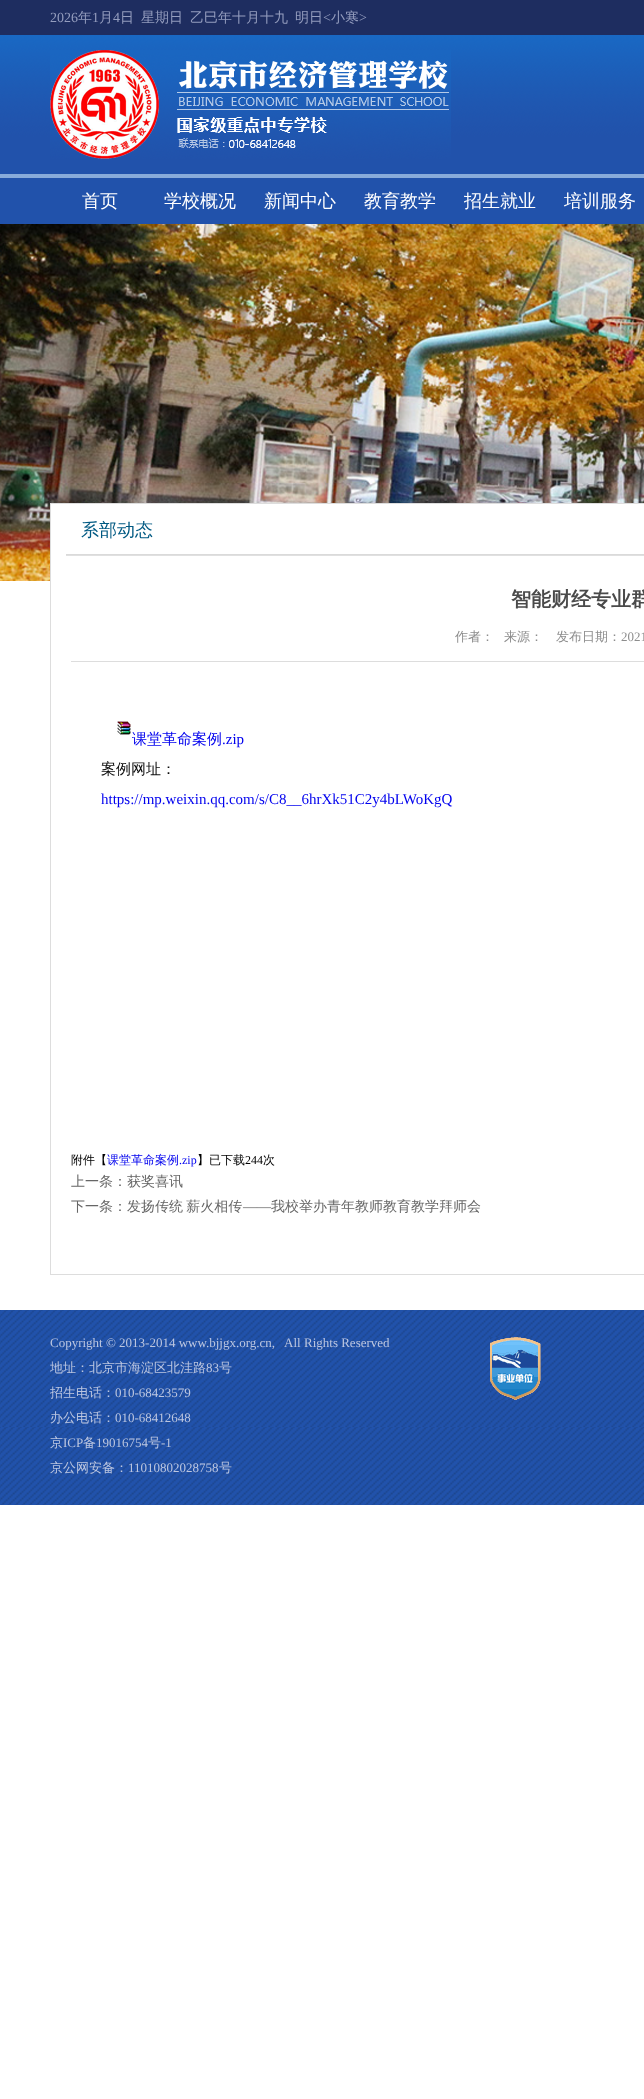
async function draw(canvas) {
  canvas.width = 644
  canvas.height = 2099
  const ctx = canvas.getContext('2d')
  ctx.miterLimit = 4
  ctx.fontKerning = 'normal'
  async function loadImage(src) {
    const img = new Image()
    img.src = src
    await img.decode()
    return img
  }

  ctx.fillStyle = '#fff'
  ctx.fillRect(0, 0, 644, 2099)
  ctx.fillStyle = '#1e2d60'
  ctx.fillRect(0, 0, 644, 35)
  ctx.font = '14px Liberation Serif'
  ctx.fillStyle = '#949dbe'
  ctx.fillText('2026', 50, 22)
  ctx.font = '500 14px WenQuanYi Zen Hei'
  ctx.fillText('年', 78, 22)
  ctx.font = '14px Liberation Serif'
  ctx.fillText('1', 92, 22)
  ctx.font = '500 14px WenQuanYi Zen Hei'
  ctx.fillText('月', 99, 22)
  ctx.font = '14px Liberation Serif'
  ctx.fillText('4', 113, 22)
  ctx.font = '500 14px WenQuanYi Zen Hei'
  ctx.fillText('日', 120, 22)
  ctx.fillText('星期日', 141, 22)
  ctx.fillText('乙巳年十月十九', 190, 22)
  ctx.fillText('明日', 295, 22)
  ctx.font = '14px Liberation Serif'
  ctx.fillText('<', 323, 22)
  ctx.font = '500 14px WenQuanYi Zen Hei'
  ctx.fillText('小寒', 331, 22)
  ctx.font = '14px Liberation Serif'
  ctx.fillText('>', 359, 22)
  ctx.drawImage(await loadImage('image0.png'), 0, 35, 644, 139)
  ctx.fillStyle = '#88abda'
  ctx.fillRect(0, 174, 644, 4)
  ctx.drawImage(await loadImage('image1.png'), 50, 50, 401, 109)
  ctx.fillStyle = '#2152ab'
  ctx.fillRect(0, 178, 644, 46)
  ctx.font = '500 18px WenQuanYi Zen Hei'
  ctx.fillStyle = '#fff'
  ctx.fillText('首页', 82, 207)
  ctx.fillText('学校概况', 164, 207)
  ctx.fillText('新闻中心', 264, 207)
  ctx.fillText('教育教学', 364, 207)
  ctx.fillText('招生就业', 464, 207)
  ctx.fillText('培训服务', 564, 207)
  ctx.drawImage(await loadImage('image2.png'), 0, 224, 644, 357)
  ctx.fillRect(51, 504, 593, 77)
  ctx.strokeStyle = '#ddd'
  ctx.strokeRect(50.5, 503.5, 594, 771)
  ctx.drawImage(await loadImage('image3.png'), 66, 554, 578, 2)
  ctx.fillStyle = '#005982'
  ctx.fillText('系部动态', 81, 536)
  ctx.font = 'bold 20px WenQuanYi Zen Hei'
  ctx.fillStyle = '#4a4a4a'
  ctx.fillText('智能财经专业群', 511, 606)
  ctx.fillStyle = '#ddd'
  ctx.fillRect(71, 661, 573, 1)
  ctx.font = '500 13px WenQuanYi Zen Hei'
  ctx.fillStyle = '#8d8d8d'
  ctx.fillText('作者：', 455, 641)
  ctx.fillText('来源：', 504, 641)
  ctx.fillText('发布日期：', 556, 641)
  ctx.font = '13px Liberation Serif'
  ctx.fillText('2021', 621, 641)
  ctx.drawImage(await loadImage('image4.png'), 117, 721, 14, 14)
  ctx.font = '500 15px WenQuanYi Zen Hei'
  ctx.fillStyle = '#00e'
  ctx.fillText('课堂革命案例', 132, 744)
  ctx.font = '15px Liberation Serif'
  ctx.fillText('.zip', 222, 744)
  ctx.font = '500 15px WenQuanYi Zen Hei'
  ctx.fillStyle = '#0c0c0c'
  ctx.fillText('案例网址：', 101, 774)
  ctx.font = '15px Liberation Serif'
  ctx.fillStyle = '#00e'
  ctx.fillText('https://mp.weixin.qq.com/s/C8__6hrXk51C2y4bLWoKgQ', 101, 804)
  ctx.font = '500 12px WenQuanYi Zen Hei'
  ctx.fillStyle = '#000'
  ctx.fillText('附件【', 71, 1164)
  ctx.fillStyle = '#00e'
  ctx.fillText('课堂革命案例', 107, 1164)
  ctx.font = '12px Liberation Serif'
  ctx.fillText('.zip', 179, 1164)
  ctx.font = '500 12px WenQuanYi Zen Hei'
  ctx.fillStyle = '#000'
  ctx.fillText('】已下载', 197, 1164)
  ctx.font = '12px Liberation Serif'
  ctx.fillText('244', 245, 1164)
  ctx.font = '500 12px WenQuanYi Zen Hei'
  ctx.fillText('次', 263, 1164)
  ctx.font = '500 14px WenQuanYi Zen Hei'
  ctx.fillStyle = '#666'
  ctx.fillText('上一条：获奖喜讯', 71, 1186)
  ctx.fillText('下一条：', 71, 1211)
  ctx.wordSpacing = '-1px'
  ctx.fillText('发扬传统 薪火相传', 127, 1211)
  ctx.wordSpacing = '0px'
  ctx.font = '14px Liberation Serif'
  ctx.fillText('——', 243, 1211)
  ctx.font = '500 14px WenQuanYi Zen Hei'
  ctx.fillText('我校举办青年教师教育教学拜师会', 271, 1211)
  ctx.drawImage(await loadImage('image5.png'), 0, 1310, 644, 195)
  ctx.font = '13px Liberation Serif'
  ctx.fillStyle = '#bcc6e0'
  ctx.fillText('Copyright © 2013-2014 www.bjjgx.org.cn,   All Rights Reserved', 50, 1347)
  ctx.font = '500 13px WenQuanYi Zen Hei'
  ctx.fillText('地址：北京市海淀区北洼路', 50, 1372)
  ctx.font = '13px Liberation Serif'
  ctx.fillText('83', 206, 1372)
  ctx.font = '500 13px WenQuanYi Zen Hei'
  ctx.fillText('号', 219, 1372)
  ctx.fillText('招生电话：', 50, 1397)
  ctx.font = '13px Liberation Serif'
  ctx.fillText('010-68423579', 115, 1397)
  ctx.font = '500 13px WenQuanYi Zen Hei'
  ctx.fillText('办公电话：', 50, 1422)
  ctx.font = '13px Liberation Serif'
  ctx.fillText('010-68412648', 115, 1422)
  ctx.font = '500 13px WenQuanYi Zen Hei'
  ctx.fillText('京', 50, 1447)
  ctx.font = '13px Liberation Serif'
  ctx.fillText('ICP', 63, 1447)
  ctx.font = '500 13px WenQuanYi Zen Hei'
  ctx.fillText('备', 83, 1447)
  ctx.font = '13px Liberation Serif'
  ctx.fillText('19016754', 96, 1447)
  ctx.font = '500 13px WenQuanYi Zen Hei'
  ctx.fillText('号', 148, 1447)
  ctx.font = '13px Liberation Serif'
  ctx.fillText('-1', 161, 1447)
  ctx.font = '500 13px WenQuanYi Zen Hei'
  ctx.fillText('京公网安备：', 50, 1472)
  ctx.font = '13px Liberation Serif'
  ctx.fillText('11010802028758', 128, 1472)
  ctx.font = '500 13px WenQuanYi Zen Hei'
  ctx.fillText('号', 219, 1472)
  ctx.drawImage(await loadImage('image6.png'), 490, 1337, 51, 63)
}

draw(document.querySelector('canvas'))
